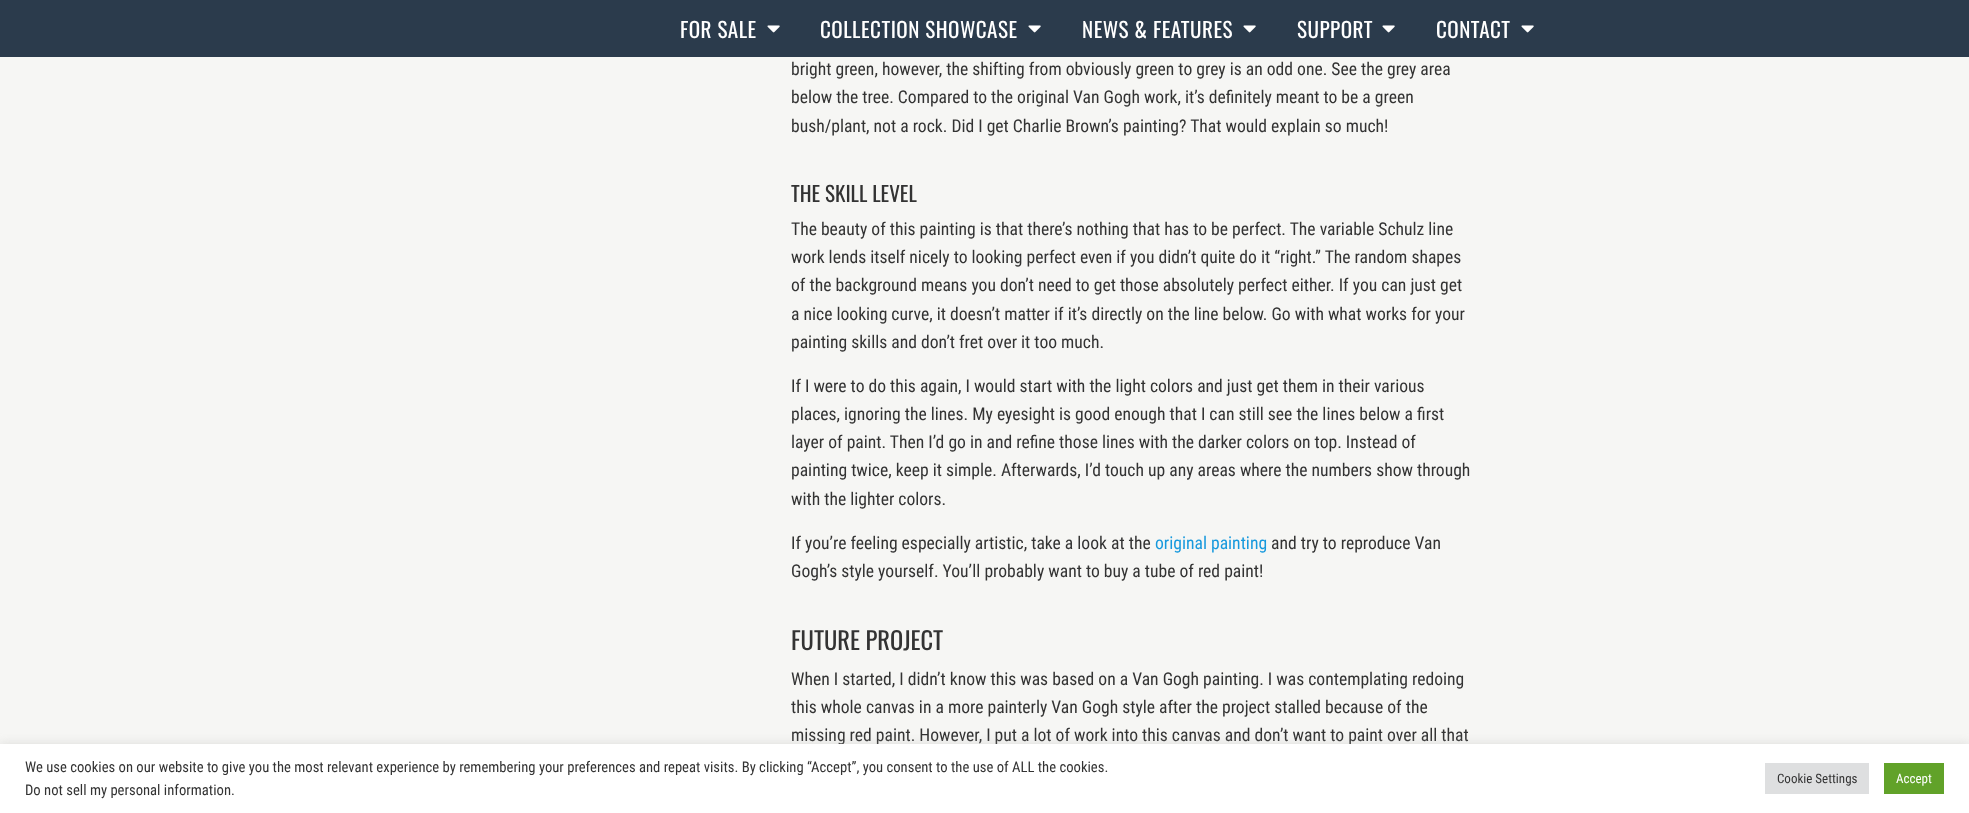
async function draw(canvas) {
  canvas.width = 1969
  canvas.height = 813
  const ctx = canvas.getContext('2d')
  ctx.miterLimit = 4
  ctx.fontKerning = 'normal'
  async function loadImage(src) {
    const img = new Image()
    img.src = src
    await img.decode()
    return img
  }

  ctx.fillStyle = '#f6f6f4'
  ctx.fillRect(0, 0, 1969, 813)
  ctx.fillStyle = '#2b3b4c'
  ctx.fillRect(0, 0, 1969, 57)
  ctx.letterSpacing = '0.5px'
  ctx.font = '21.1px Oswald'
  ctx.fillStyle = '#fff'
  ctx.fillText('FOR SALE', 680, 38)
  ctx.drawImage(await loadImage('image0.png'), 767, 25, 13, 8)
  ctx.fillText('COLLECTION SHOWCASE', 820, 38)
  ctx.drawImage(await loadImage('image0.png'), 1028, 25, 13, 8)
  ctx.fillText('NEWS & FEATURES', 1082, 38)
  ctx.drawImage(await loadImage('image0.png'), 1243, 25, 13, 8)
  ctx.fillText('SUPPORT', 1297, 38)
  ctx.drawImage(await loadImage('image0.png'), 1382, 25, 13, 8)
  ctx.fillText('CONTACT', 1436, 38)
  ctx.drawImage(await loadImage('image0.png'), 1521, 25, 13, 8)
  ctx.letterSpacing = '0px'
  ctx.font = '17.6px Roboto Condensed'
  ctx.fillStyle = '#333'
  ctx.fillText('bright green, however, the shifting from obviously green to grey is an odd one. See the grey area', 791, 75)
  ctx.fillText('below the tree. Compared to the original Van Gogh work, it’s definitely meant to be a green', 791, 103)
  ctx.fillText('bush/plant, not a rock. Did I get Charlie Brown’s painting? That would explain so much!', 791, 132)
  ctx.font = '21.1px Oswald'
  ctx.fillText('THE SKILL LEVEL', 791, 202)
  ctx.font = '17.6px Roboto Condensed'
  ctx.fillText('The beauty of this painting is that there’s nothing that has to be perfect. The variable Schulz line', 791, 235)
  ctx.fillText('work lends itself nicely to looking perfect even if you didn’t quite do it “right.” The random shapes', 791, 263)
  ctx.fillText('of the background means you don’t need to get those absolutely perfect either. If you can just get', 791, 291)
  ctx.fillText('a nice looking curve, it doesn’t matter if it’s directly on the line below. Go with what works for your', 791, 320)
  ctx.fillText('painting skills and don’t fret over it too much.', 791, 348)
  ctx.fillText('If I were to do this again, I would start with the light colors and just get them in their various', 791, 392)
  ctx.fillText('places, ignoring the lines. My eyesight is good enough that I can still see the lines below a first', 791, 420)
  ctx.fillText('layer of paint. Then I’d go in and refine those lines with the darker colors on top. Instead of', 791, 448)
  ctx.fillText('painting twice, keep it simple. Afterwards, I’d touch up any areas where the numbers show through', 791, 476)
  ctx.fillText('with the lighter colors.', 791, 505)
  ctx.fillText('If you’re feeling especially artistic, take a look at the', 791, 549)
  ctx.fillStyle = '#1799dd'
  ctx.fillText('original painting', 1155, 549)
  ctx.fillStyle = '#333'
  ctx.fillText('and try to reproduce Van', 1271, 549)
  ctx.fillText('Gogh’s style yourself. You’ll probably want to buy a tube of red paint!', 791, 577)
  ctx.font = '24.5px Oswald'
  ctx.fillText('FUTURE PROJECT', 791, 650)
  ctx.font = '17.6px Roboto Condensed'
  ctx.fillText('When I started, I didn’t know this was based on a Van Gogh painting. I was contemplating redoing', 791, 685)
  ctx.fillText('this whole canvas in a more painterly Van Gogh style after the project stalled because of the', 791, 713)
  ctx.fillText('missing red paint. However, I put a lot of work into this canvas and don’t want to paint over all that', 791, 741)
  ctx.fillStyle = '#acabab4d'
  ctx.filter = 'blur(5px)'
  ctx.beginPath()
  ctx.rect(0, 743, 1969, 69)
  ctx.fill()
  ctx.filter = 'none'
  ctx.fillStyle = '#fff'
  ctx.fillRect(0, 744, 1969, 69)
  ctx.font = '14.67px Roboto Condensed'
  ctx.fillStyle = '#333'
  ctx.fillText('We use cookies on our website to give you the most relevant experience by remembering your preferences and repeat visits. By clicking “Accept”, you consent to the use of ALL the cookies.', 25, 772)
  ctx.fillText('Do not sell my personal information.', 25, 795)
  ctx.fillStyle = '#dedfe0'
  ctx.fillRect(1765, 763, 104, 31)
  ctx.font = '13px Roboto Condensed'
  ctx.fillStyle = '#333'
  ctx.fillText('Cookie Settings', 1777, 783)
  ctx.fillStyle = '#61a229'
  ctx.fillRect(1884, 763, 60, 31)
  ctx.fillStyle = '#fff'
  ctx.fillText('Accept', 1896, 783)
}

draw(document.querySelector('canvas'))
